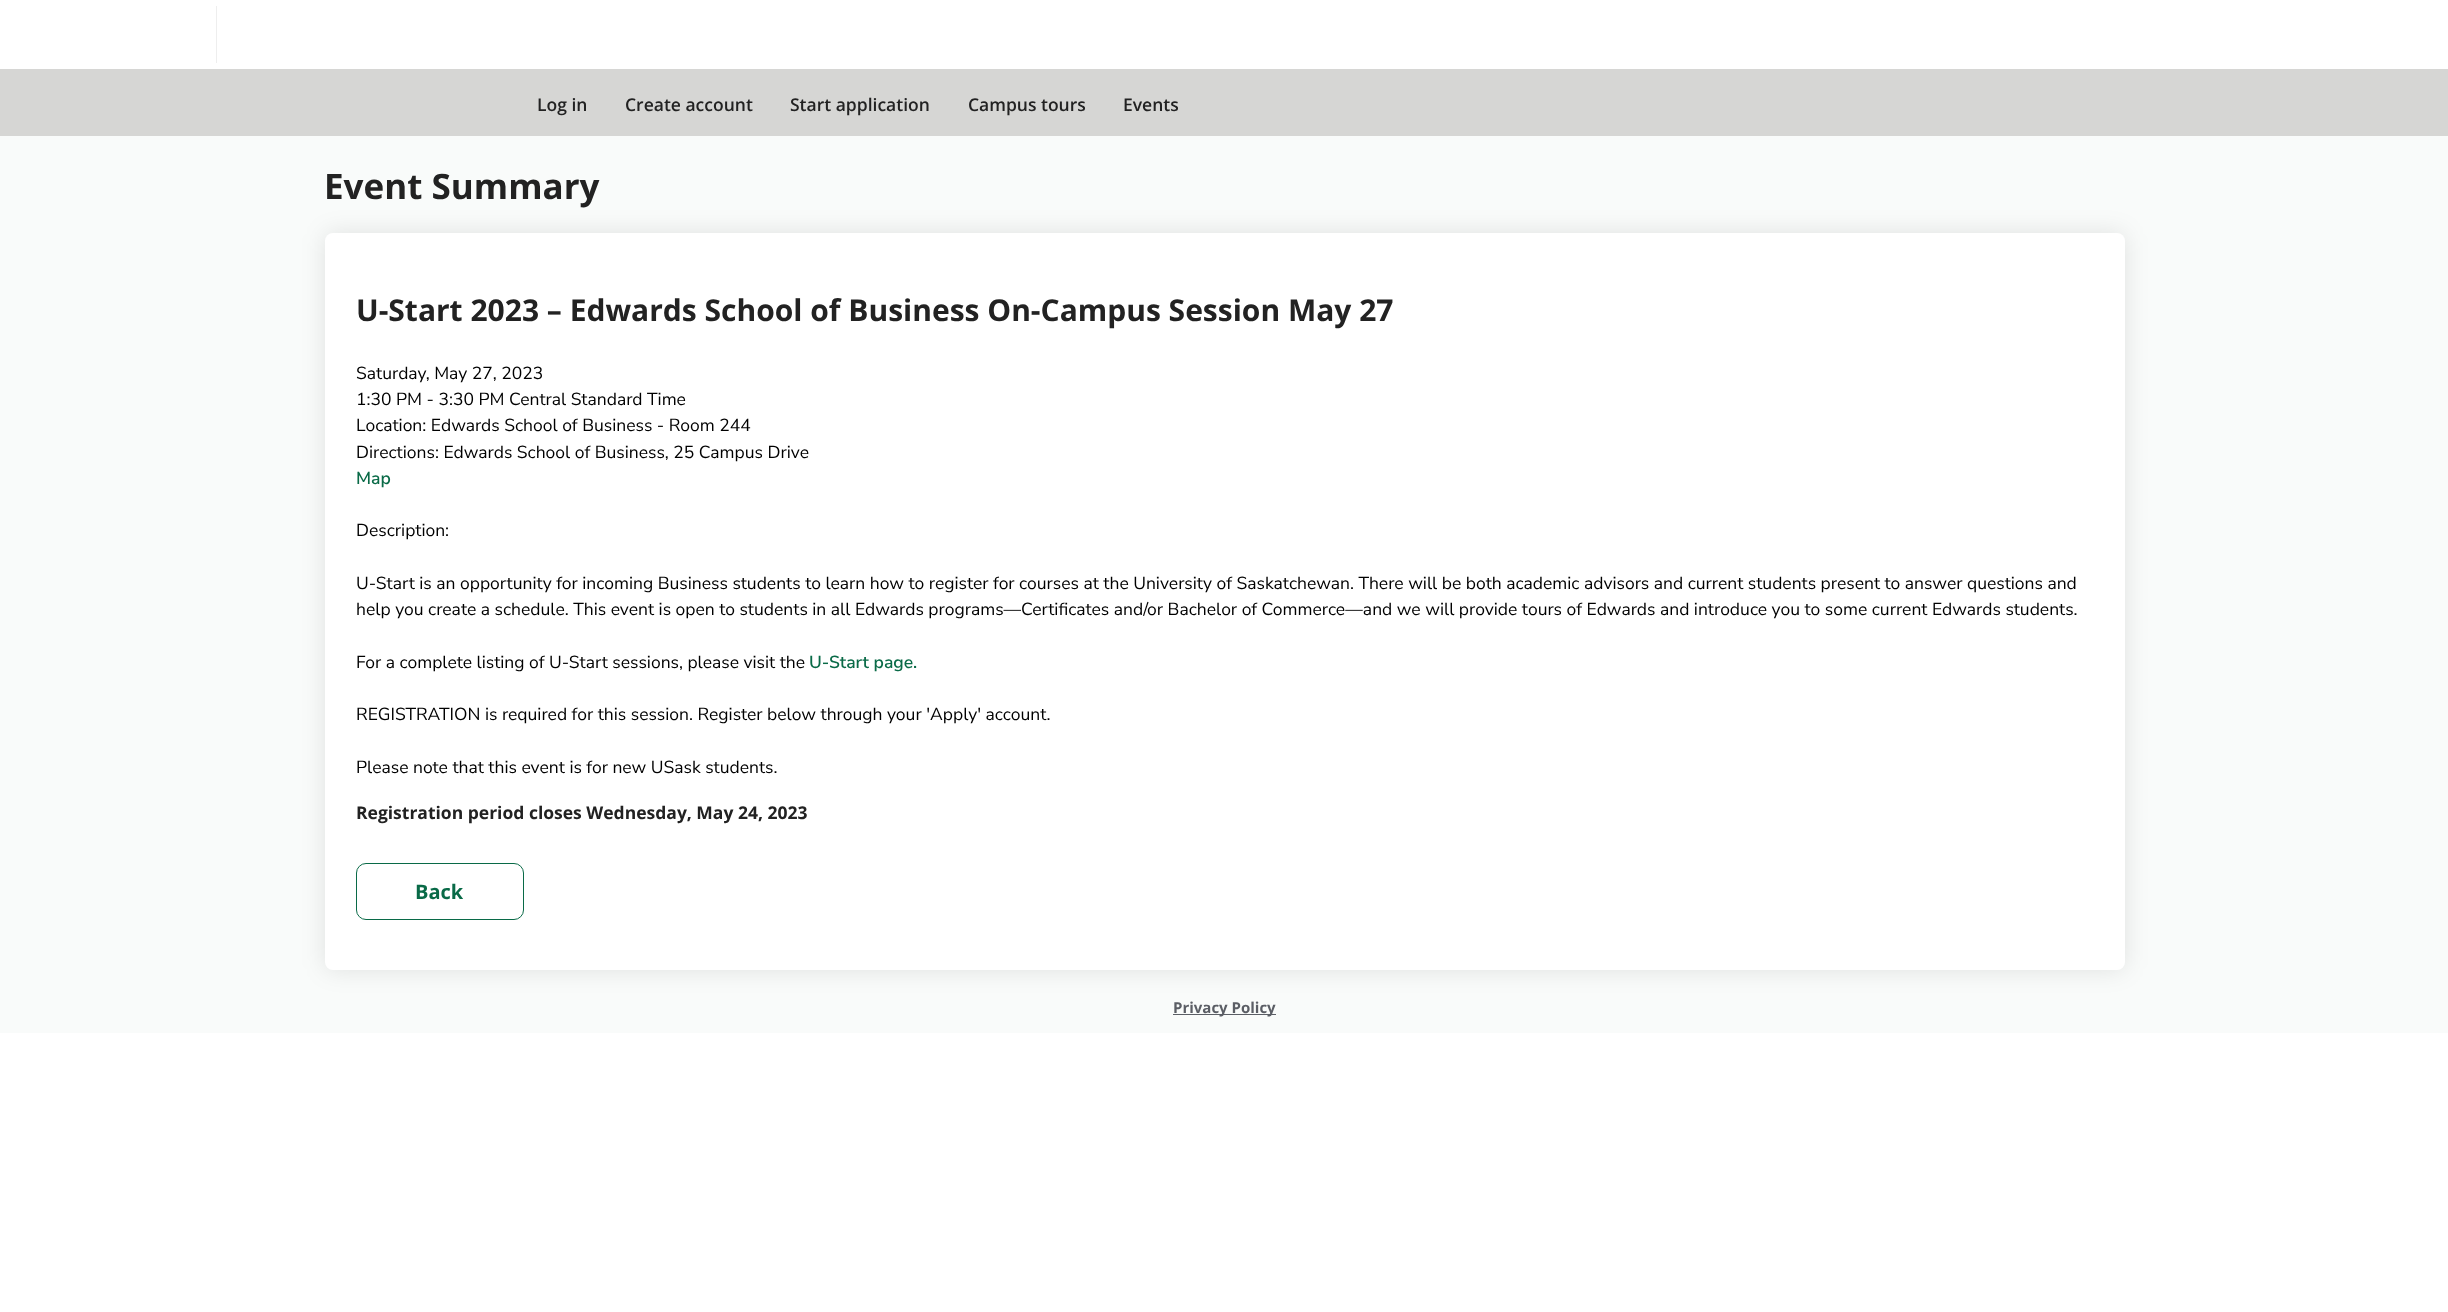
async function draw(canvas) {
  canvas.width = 2448
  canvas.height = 1312
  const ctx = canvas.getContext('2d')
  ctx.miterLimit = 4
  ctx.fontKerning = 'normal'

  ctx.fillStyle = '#fff'
  ctx.fillRect(0, 0, 2448, 1312)
  ctx.fillStyle = '#d6d6d4'
  ctx.fillRect(0, 69, 2448, 67)
  ctx.fillStyle = '#eee'
  ctx.fillRect(216, 6, 1, 57)
  ctx.font = '600 17.5px Open Sans'
  ctx.fillStyle = '#222'
  ctx.fillText('Log in', 537, 111)
  ctx.fillText('Create account', 625, 111)
  ctx.fillText('Start application', 790, 111)
  ctx.fillText('Campus tours', 968, 111)
  ctx.fillText('Events', 1123, 111)
  ctx.fillStyle = '#f9fbfa'
  ctx.fillRect(0, 136, 2448, 897)
  ctx.font = 'bold 35px Open Sans'
  ctx.fillStyle = '#222'
  ctx.fillText('Event Summary', 324, 199)
  ctx.fillStyle = '#0000001a'
  ctx.filter = 'blur(12.5px)'
  ctx.beginPath()
  ctx.roundRect(325, 233, 1800, 737, 8)
  ctx.fill()
  ctx.filter = 'none'
  ctx.fillStyle = '#fff'
  ctx.beginPath()
  ctx.roundRect(325, 233, 1800, 737, 8)
  ctx.fill()
  ctx.font = 'bold 30px Open Sans'
  ctx.fillStyle = '#222'
  ctx.fillText('U-Start 2023 – Edwards School of Business On-Campus Session May 27', 356, 321)
  ctx.font = '17.5px Nunito Sans'
  ctx.fillStyle = '#000'
  ctx.fillText('Saturday, May 27, 2023', 356, 379)
  ctx.fillText('1:30 PM - 3:30 PM Central Standard Time', 356, 405)
  ctx.fillText('Location: Edwards School of Business - Room 244', 356, 431)
  ctx.fillText('Directions: Edwards School of Business, 25 Campus Drive', 356, 458)
  ctx.font = '600 17.5px Nunito Sans'
  ctx.fillStyle = '#096a47'
  ctx.fillText('Map', 356, 484)
  ctx.font = '17.5px Nunito Sans'
  ctx.fillStyle = '#000'
  ctx.fillText('Description:', 356, 536)
  ctx.fillText('U-Start is an opportunity for incoming Business students to learn how to register for courses at the University of Saskatchewan. There will be both academic advisors and current students present to answer questions and', 356, 589)
  ctx.fillText('help you create a schedule. This event is open to students in all Edwards programs—Certificates and/or Bachelor of Commerce—and we will provide tours of Edwards and introduce you to some current Edwards students.', 356, 615)
  ctx.fillText('For a complete listing of U-Start sessions, please visit the', 356, 668)
  ctx.font = '600 17.5px Nunito Sans'
  ctx.fillStyle = '#096a47'
  ctx.fillText('U-Start page.', 809, 668)
  ctx.font = '17.5px Nunito Sans'
  ctx.fillStyle = '#000'
  ctx.fillText('REGISTRATION is required for this session. Register below through your \'Apply\' account.', 356, 720)
  ctx.fillText('Please note that this event is for new USask students.', 356, 773)
  ctx.font = 'bold 17.5px Open Sans'
  ctx.fillStyle = '#222'
  ctx.fillText('Registration period closes Wednesday, May 24, 2023', 356, 819)
  ctx.beginPath()
  ctx.roundRect(356.5, 863.5, 167, 56, 9.5)
  ctx.strokeStyle = '#096a47'
  ctx.stroke()
  ctx.font = 'bold 20px Open Sans'
  ctx.fillStyle = '#096a47'
  ctx.fillText('Back', 415, 899)
  ctx.fillStyle = '#5b5e65'
  ctx.fillRect(1173, 1014, 103, 1)
  ctx.font = 'bold 15px Open Sans'
  ctx.fillText('Privacy Policy', 1173, 1013)
}

draw(document.querySelector('canvas'))
